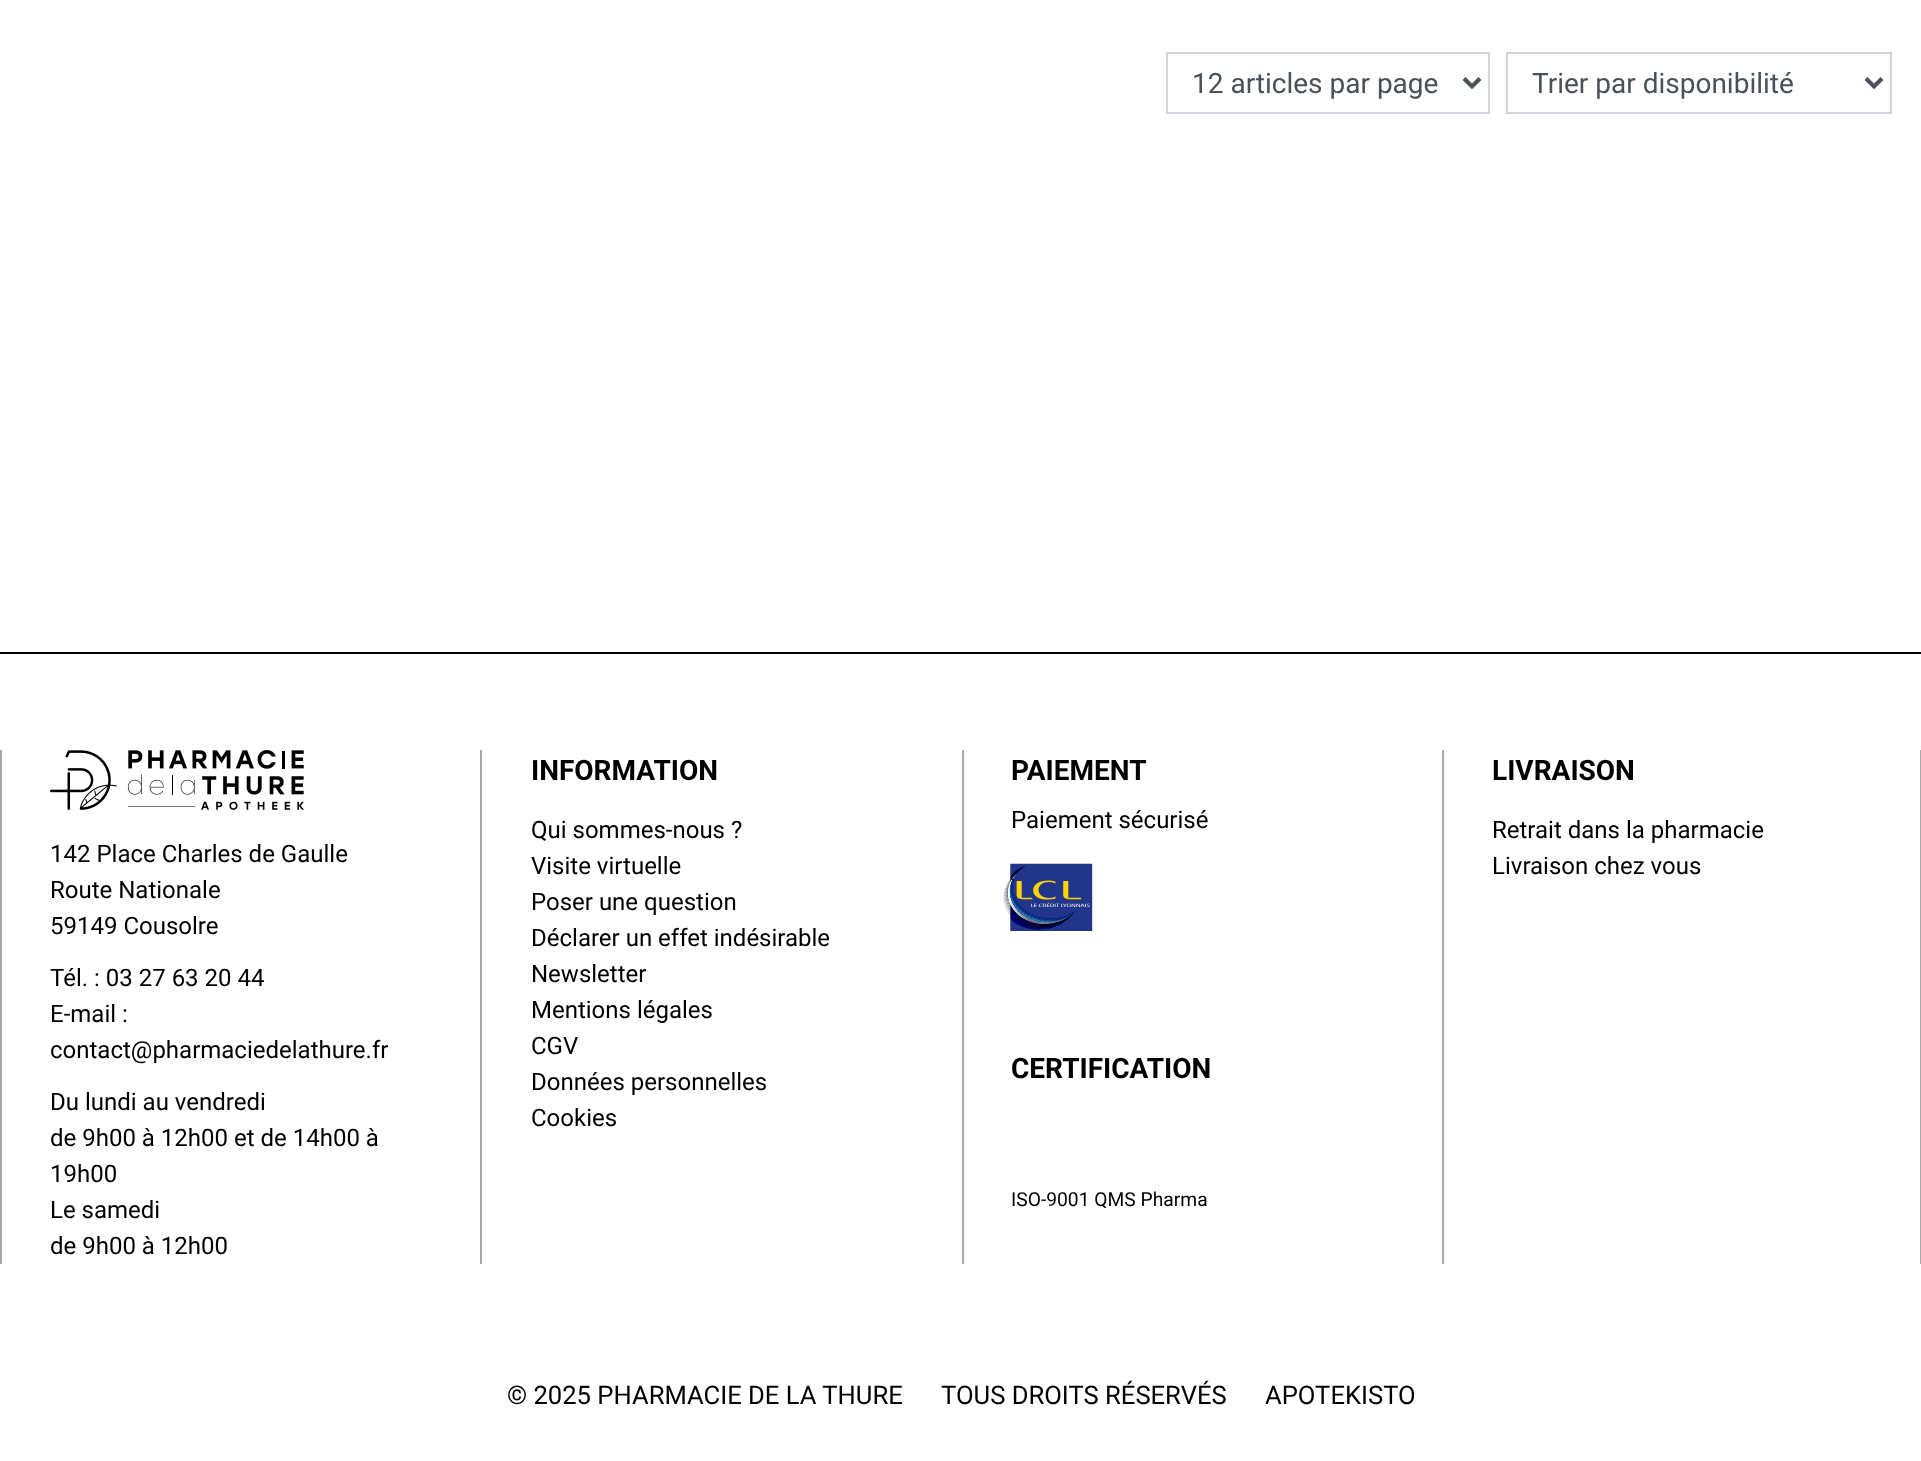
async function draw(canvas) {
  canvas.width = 1921
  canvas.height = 1461
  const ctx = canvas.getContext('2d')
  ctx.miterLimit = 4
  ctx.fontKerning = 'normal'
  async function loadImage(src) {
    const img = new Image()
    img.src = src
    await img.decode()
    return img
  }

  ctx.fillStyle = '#fff'
  ctx.fillRect(0, 0, 1921, 1461)
  ctx.strokeStyle = '#ced4da'
  ctx.lineWidth = 2
  ctx.strokeRect(1167, 53, 322, 60)
  ctx.beginPath()
  ctx.moveTo(1464, 78.5)
  ctx.lineTo(1472, 86.5)
  ctx.lineTo(1480, 78.5)
  ctx.strokeStyle = '#495057'
  ctx.lineWidth = 4
  ctx.stroke()
  ctx.font = '28px Roboto'
  ctx.fillStyle = '#495057'
  ctx.fillText('12 articles par page', 1192, 93)
  ctx.strokeStyle = '#ced4da'
  ctx.lineWidth = 2
  ctx.strokeRect(1507, 53, 384, 60)
  ctx.beginPath()
  ctx.moveTo(1866, 78.5)
  ctx.lineTo(1874, 86.5)
  ctx.lineTo(1882, 78.5)
  ctx.strokeStyle = '#495057'
  ctx.lineWidth = 4
  ctx.stroke()
  ctx.fillText('Trier par disponibilité', 1532, 93)
  ctx.fillStyle = '#000'
  ctx.fillRect(0, 652, 1921, 2)
  ctx.fillStyle = '#aaa'
  ctx.fillRect(0, 750, 2, 514)
  ctx.drawImage(await loadImage('image0.png'), 50, 750, 254, 60)
  ctx.font = '24px Roboto'
  ctx.fillStyle = '#000'
  ctx.fillText('142 Place Charles de Gaulle', 50, 862)
  ctx.fillText('Route Nationale', 50, 898)
  ctx.fillText('59149 Cousolre', 50, 934)
  ctx.fillText('Tél. : 03 27 63 20 44', 50, 986)
  ctx.fillText('E-mail :', 50, 1022)
  ctx.fillText('contact@pharmaciedelathure.fr', 50, 1058)
  ctx.fillText('Du lundi au vendredi', 50, 1110)
  ctx.fillText('de 9h00 à 12h00 et de 14h00 à', 50, 1146)
  ctx.fillText('19h00', 50, 1182)
  ctx.fillText('Le samedi', 50, 1218)
  ctx.fillText('de 9h00 à 12h00', 50, 1254)
  ctx.fillStyle = '#aaa'
  ctx.fillRect(480, 750, 2, 514)
  ctx.font = 'bold 28px Roboto'
  ctx.fillStyle = '#000'
  ctx.fillText('INFORMATION', 531, 780)
  ctx.font = '24px Roboto'
  ctx.fillText('Qui sommes-nous ?', 531, 838)
  ctx.fillText('Visite virtuelle', 531, 874)
  ctx.fillText('Poser une question', 531, 910)
  ctx.fillText('Déclarer un effet indésirable', 531, 946)
  ctx.fillText('Newsletter', 531, 982)
  ctx.fillText('Mentions légales', 531, 1018)
  ctx.fillText('CGV', 531, 1054)
  ctx.fillText('Données personnelles', 531, 1090)
  ctx.fillText('Cookies', 531, 1126)
  ctx.fillStyle = '#aaa'
  ctx.fillRect(962, 750, 2, 514)
  ctx.font = 'bold 28px Roboto'
  ctx.fillStyle = '#000'
  ctx.fillText('PAIEMENT', 1011, 780)
  ctx.font = '24px Roboto'
  ctx.fillText('Paiement sécurisé', 1011, 828)
  ctx.drawImage(await loadImage('image1.png'), 1003, 863, 90, 68)
  ctx.font = 'bold 28px Roboto'
  ctx.fillText('CERTIFICATION', 1011, 1078)
  ctx.font = '19.25px Roboto'
  ctx.fillText('ISO-9001 QMS Pharma', 1011, 1206)
  ctx.fillStyle = '#aaa'
  ctx.fillRect(1920, 750, 1, 514)
  ctx.fillRect(1442, 750, 2, 514)
  ctx.font = 'bold 28px Roboto'
  ctx.fillStyle = '#000'
  ctx.fillText('LIVRAISON', 1492, 780)
  ctx.font = '24px Roboto'
  ctx.fillText('Retrait dans la pharmacie', 1492, 838)
  ctx.fillText('Livraison chez vous', 1492, 874)
  ctx.font = '25.6px Roboto'
  ctx.fillText('© 2025 PHARMACIE DE LA THURE', 507, 1404)
  ctx.fillText('TOUS DROITS RÉSERVÉS', 941, 1404)
  ctx.fillText('APOTEKISTO', 1265, 1404)
}

draw(document.querySelector('canvas'))
